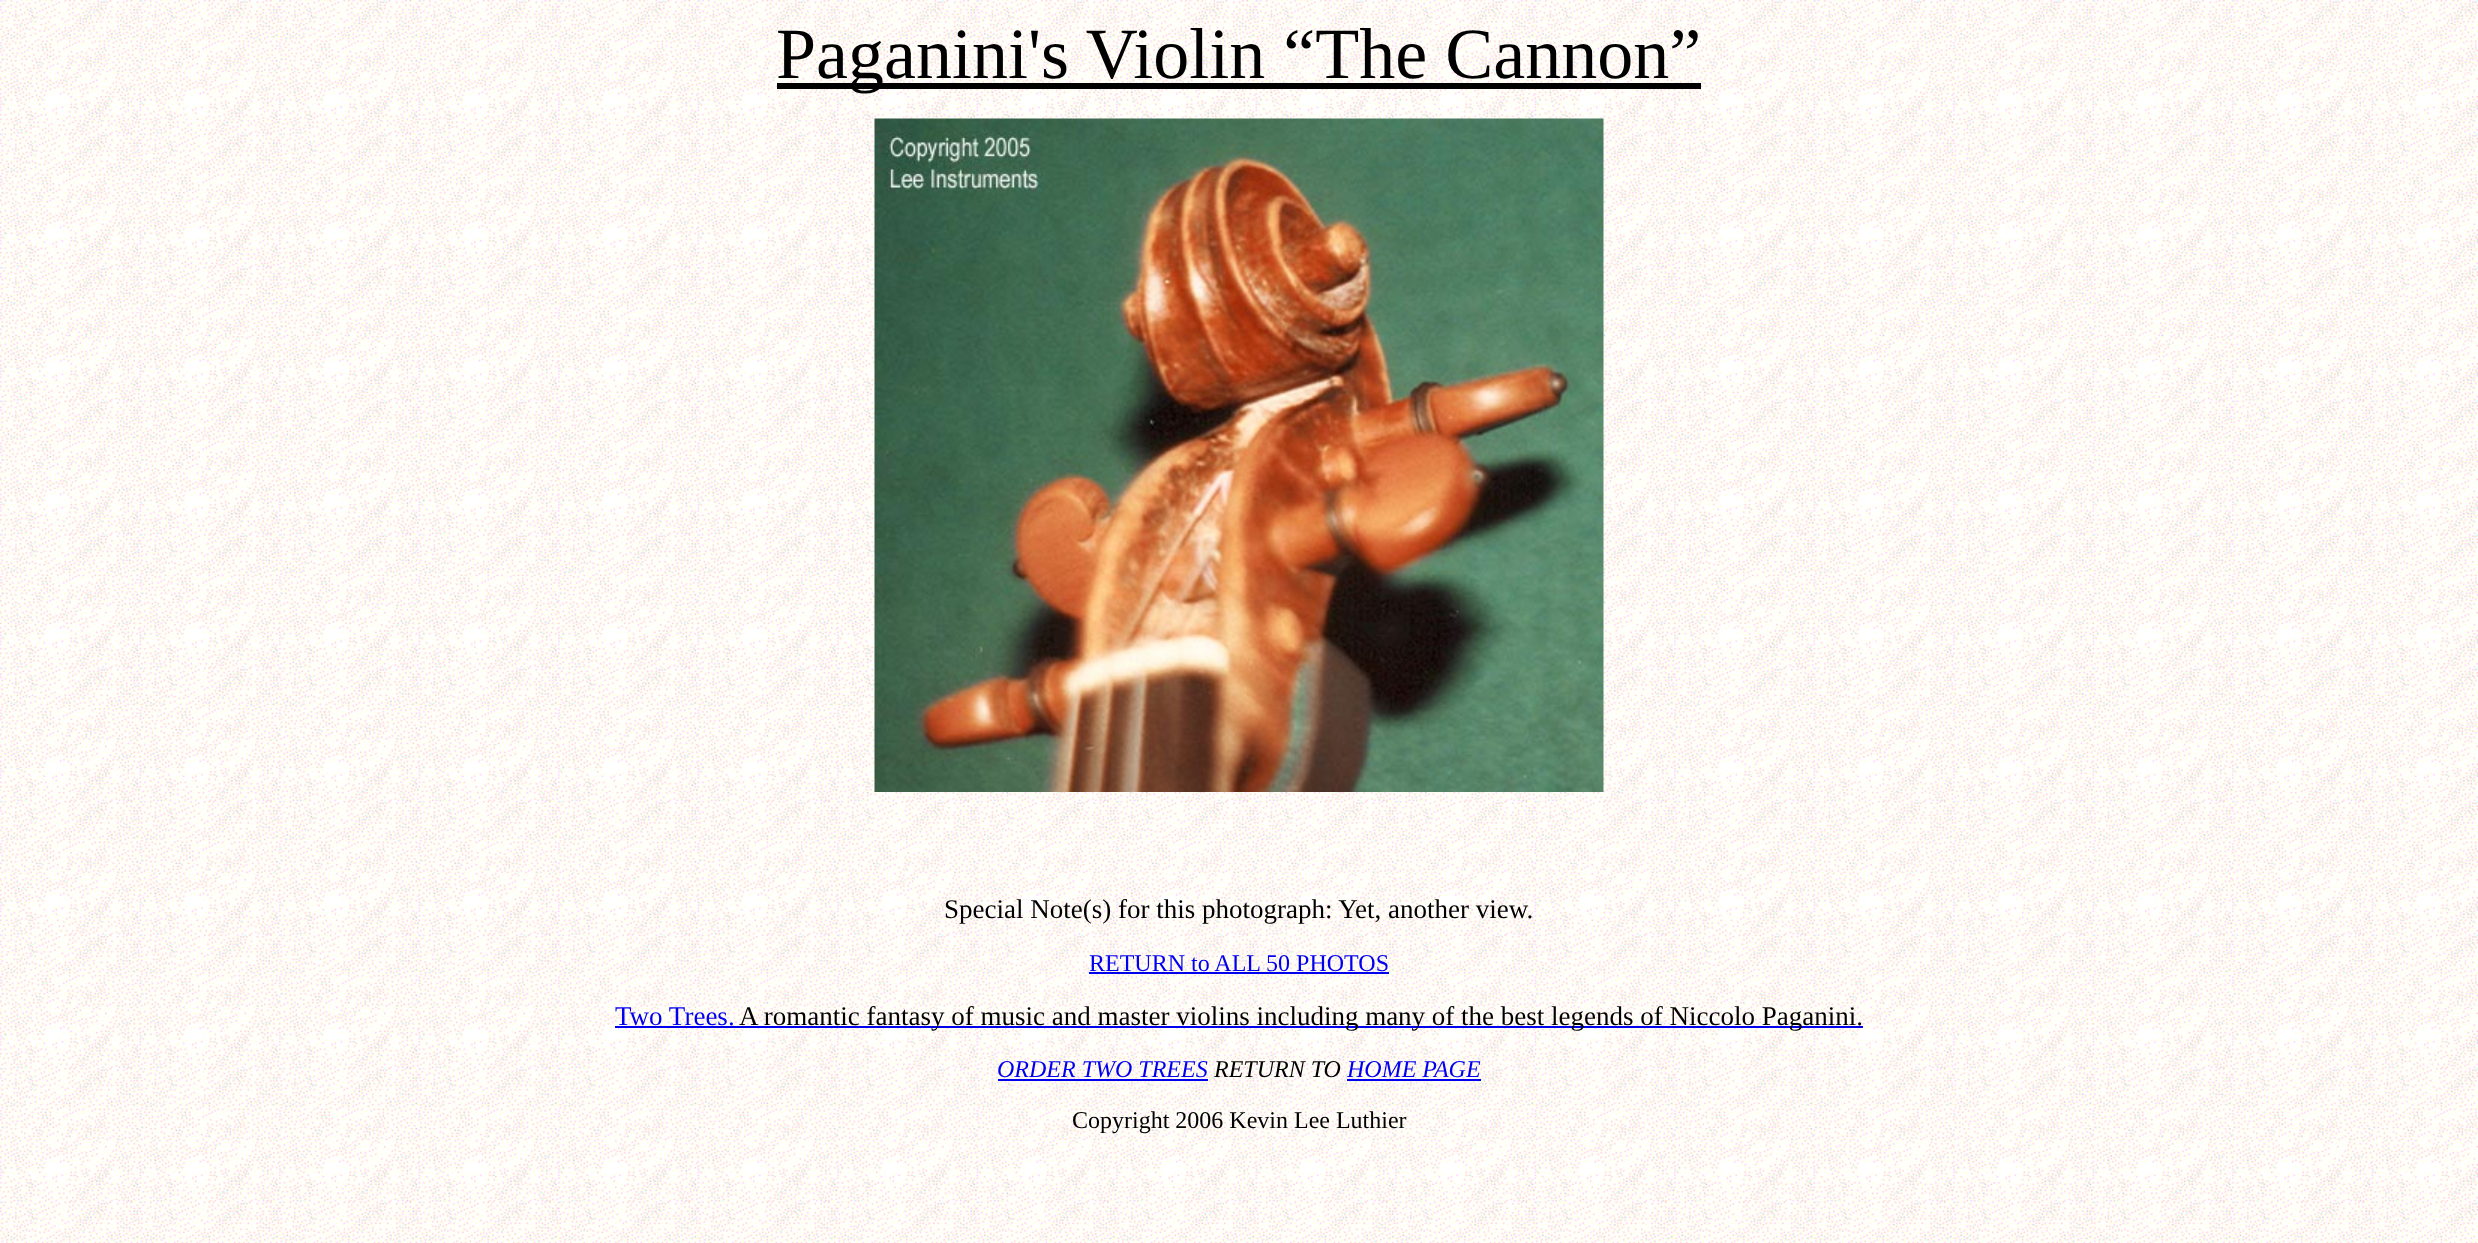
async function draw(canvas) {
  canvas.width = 2478
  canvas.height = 1243
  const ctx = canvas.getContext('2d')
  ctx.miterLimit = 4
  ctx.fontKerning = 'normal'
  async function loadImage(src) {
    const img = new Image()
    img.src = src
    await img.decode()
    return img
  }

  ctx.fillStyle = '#fff'
  ctx.fillRect(0, 0, 2478, 1243)
  ctx.drawImage(await loadImage('image0.png'), 0, 0, 2478, 1243)
  ctx.fillStyle = '#000'
  ctx.fillRect(777, 83, 924, 6)
  ctx.font = '72px Liberation Serif'
  ctx.fillText('Paganini\'s Violin “The Cannon”', 776, 78)
  ctx.drawImage(await loadImage('image1.png'), 874, 118, 730, 674)
  ctx.font = '27px Liberation Serif'
  ctx.fillText('Special Note(s) for this photograph: Yet, another view.', 944, 918)
  ctx.font = '24px Liberation Serif'
  ctx.fillStyle = '#00e'
  ctx.fillText('RETURN to ALL 50 PHOTOS', 1089, 971)
  ctx.fillRect(1089, 972, 300, 2)
  ctx.font = '27px Liberation Serif'
  ctx.fillText('Two Trees.', 615, 1025)
  ctx.fillRect(615, 1026, 1248, 2)
  ctx.fillStyle = '#000'
  ctx.fillText('A romantic fantasy of music and master violins including many of the best legends of Niccolo Paganini.', 739, 1025)
  ctx.font = 'italic 24px Liberation Serif'
  ctx.fillStyle = '#00e'
  ctx.fillText('ORDER TWO TREES', 997, 1077)
  ctx.fillRect(998, 1079, 210, 2)
  ctx.fillStyle = '#000'
  ctx.fillText('RETURN TO', 1214, 1077)
  ctx.fillStyle = '#00e'
  ctx.fillText('HOME PAGE', 1347, 1077)
  ctx.fillRect(1347, 1079, 134, 2)
  ctx.font = '24px Liberation Serif'
  ctx.fillStyle = '#000'
  ctx.fillText('Copyright 2006 Kevin Lee Luthier', 1072, 1128)
}

draw(document.querySelector('canvas'))
